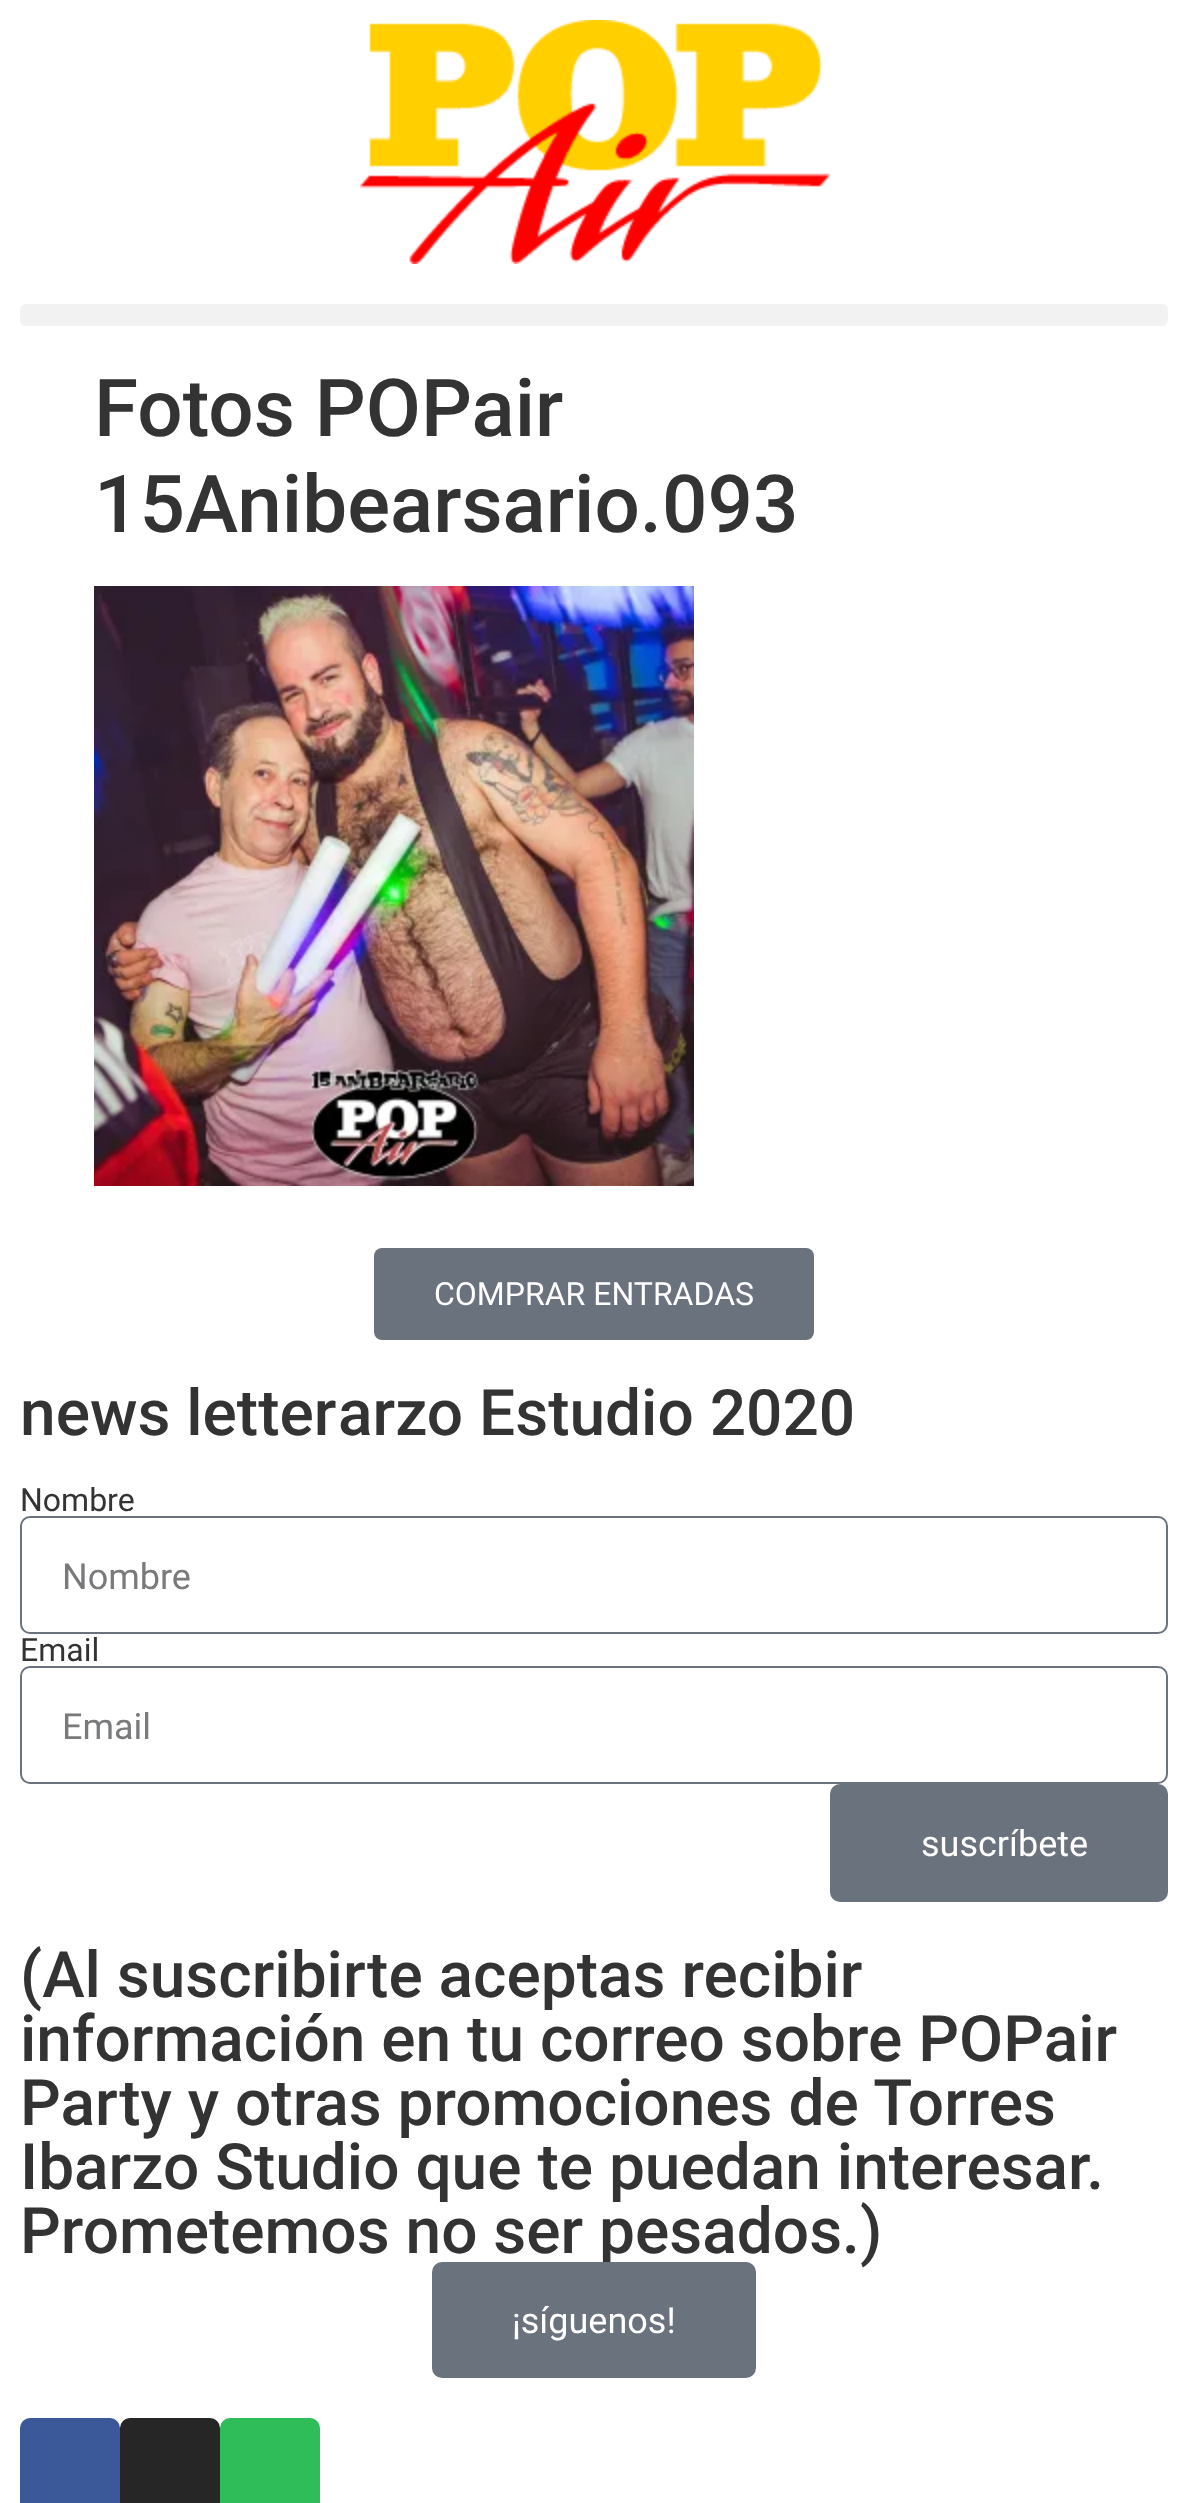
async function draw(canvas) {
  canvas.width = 1188
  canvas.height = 2503
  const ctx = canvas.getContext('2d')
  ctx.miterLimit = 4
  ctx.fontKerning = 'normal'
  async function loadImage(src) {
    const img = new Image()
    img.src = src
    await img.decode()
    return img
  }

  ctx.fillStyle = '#fff'
  ctx.fillRect(0, 0, 1188, 2503)
  ctx.drawImage(await loadImage('image0.png'), 360, 20, 470, 244)
  ctx.fillStyle = '#f2f2f2'
  ctx.beginPath()
  ctx.roundRect(20, 304, 1148, 22, 6)
  ctx.fill()
  ctx.font = '500 80px Roboto'
  ctx.fillStyle = '#333'
  ctx.fillText('Fotos POPair', 94, 436)
  ctx.fillText('15Anibearsario.093', 94, 532)
  ctx.drawImage(await loadImage('image1.png'), 94, 586, 600, 600)
  ctx.fillStyle = '#69727d'
  ctx.beginPath()
  ctx.roundRect(374, 1248, 440, 92, 8)
  ctx.fill()
  ctx.font = '32px Roboto'
  ctx.fillStyle = '#fff'
  ctx.fillText('COMPRAR ENTRADAS', 434, 1305)
  ctx.font = '500 64px Roboto'
  ctx.fillStyle = '#333'
  ctx.fillText('news letter', 20, 1435)
  ctx.fillText('arzo Estudio 2020', 338, 1435)
  ctx.font = '32px Roboto'
  ctx.fillText('Nombre', 20, 1511)
  ctx.beginPath()
  ctx.roundRect(21, 1517, 1146, 116, 9)
  ctx.strokeStyle = '#69727d'
  ctx.lineWidth = 2
  ctx.stroke()
  ctx.font = '36px Roboto'
  ctx.fillStyle = '#797a7c'
  ctx.fillText('Nombre', 62, 1589)
  ctx.font = '32px Roboto'
  ctx.fillStyle = '#333'
  ctx.fillText('Email', 20, 1661)
  ctx.beginPath()
  ctx.roundRect(21, 1667, 1146, 116, 9)
  ctx.stroke()
  ctx.font = '36px Roboto'
  ctx.fillStyle = '#797a7c'
  ctx.fillText('Email', 62, 1739)
  ctx.fillStyle = '#69727d'
  ctx.beginPath()
  ctx.roundRect(830, 1784, 338, 118, 10)
  ctx.fill()
  ctx.fillStyle = '#fff'
  ctx.fillText('suscríbete', 921, 1856)
  ctx.font = '500 64px Roboto'
  ctx.fillStyle = '#333'
  ctx.fillText('(Al suscribirte aceptas recibir', 20, 1997)
  ctx.fillText('información en tu correo sobre POPair', 20, 2061)
  ctx.fillText('Party y otras promociones de Torres', 20, 2125)
  ctx.fillText('Ibarzo Studio que te puedan interesar.', 20, 2189)
  ctx.fillText('Prometemos no ser pesados.)', 20, 2253)
  ctx.fillStyle = '#69727d'
  ctx.beginPath()
  ctx.roundRect(432, 2262, 324, 116, 10)
  ctx.fill()
  ctx.font = '36px Roboto'
  ctx.fillStyle = '#fff'
  ctx.fillText('¡síguenos!', 512, 2333)
  ctx.fillStyle = '#3b5998'
  ctx.beginPath()
  ctx.roundRect(20, 2418, 100, 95, 10)
  ctx.fill()
  ctx.fillStyle = '#262626'
  ctx.beginPath()
  ctx.roundRect(120, 2418, 100, 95, 10)
  ctx.fill()
  ctx.fillStyle = '#2ebd59'
  ctx.beginPath()
  ctx.roundRect(220, 2418, 100, 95, 10)
  ctx.fill()
}

draw(document.querySelector('canvas'))
